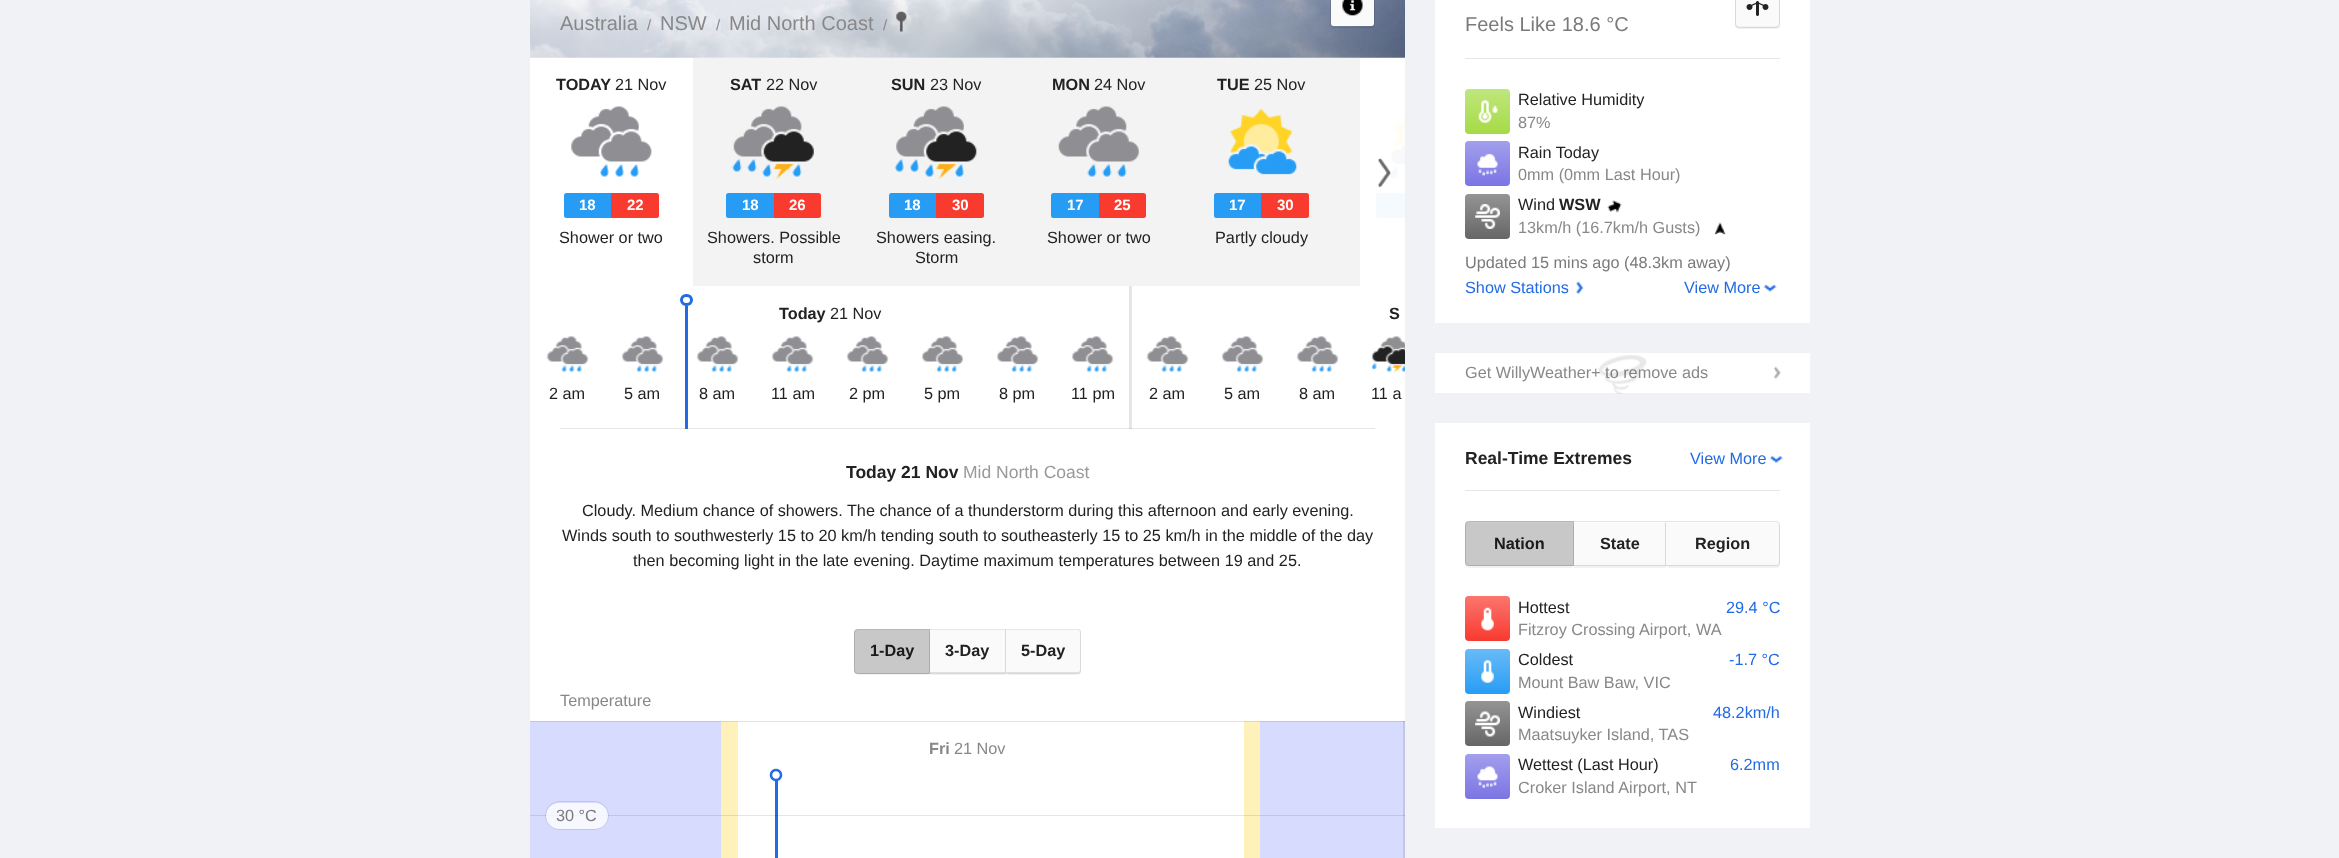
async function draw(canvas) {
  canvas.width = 2339
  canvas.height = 858
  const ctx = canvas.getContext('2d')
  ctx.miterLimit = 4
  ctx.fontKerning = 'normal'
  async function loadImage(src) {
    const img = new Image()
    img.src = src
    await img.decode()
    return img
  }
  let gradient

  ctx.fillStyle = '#f0f2f6'
  ctx.fillRect(0, 0, 2339, 858)
  ctx.fillStyle = '#fff'
  ctx.fillRect(530, 57, 875, 664)
  ctx.fillStyle = '#e6e6e6'
  ctx.fillRect(1129, 286, 3, 143)
  ctx.drawImage(await loadImage('image0.png'), 530, 0, 875, 58)
  gradient = ctx.createLinearGradient(723, -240, 1213, 250)
  gradient.addColorStop(0.5, '#ffffff99')
  gradient.addColorStop(1, '#ffffff00')
  ctx.fillStyle = gradient
  ctx.fillRect(530, 0, 875, 58)
  ctx.fillStyle = '#fafafa'
  ctx.beginPath()
  ctx.roundRect(1331, -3, 43, 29, 2.5)
  ctx.fill()
  ctx.beginPath()
  ctx.roundRect(1330.5, -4.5, 44, 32, 3.5)
  ctx.strokeStyle = '#0000001a'
  ctx.stroke()
  ctx.drawImage(await loadImage('image1.png'), 1342, 0, 21, 16)
  ctx.font = '20px Liberation Sans'
  ctx.fillStyle = '#888'
  ctx.fillText('Australia', 560, 30)
  ctx.font = '15px Liberation Sans'
  ctx.fillText('/', 647, 30)
  ctx.font = '20px Liberation Sans'
  ctx.fillText('NSW', 660, 30)
  ctx.font = '15px Liberation Sans'
  ctx.fillText('/', 716, 30)
  ctx.font = '20px Liberation Sans'
  ctx.fillText('Mid North Coast', 729, 30)
  ctx.font = '15px Liberation Sans'
  ctx.fillText('/', 883, 30)
  ctx.drawImage(await loadImage('image2.png'), 896, 11, 11, 21)
  ctx.fillStyle = '#f3f3f3'
  ctx.fillRect(693, 58, 667, 228)
  ctx.font = 'bold 16.25px Liberation Sans'
  ctx.fillStyle = '#222'
  ctx.fillText('TODAY', 556, 90)
  ctx.font = '16.25px Liberation Sans'
  ctx.fillText('21 Nov', 615, 90)
  ctx.drawImage(await loadImage('image3.png'), 571, 106, 81, 71)
  ctx.fillStyle = '#279cf4'
  ctx.beginPath()
  ctx.roundRect(564, 193, 47, 25, [2.5, 0, 0, 2.5])
  ctx.fill()
  ctx.font = 'bold 15px Liberation Sans'
  ctx.fillStyle = '#fff'
  ctx.fillText('18', 579, 210)
  ctx.fillStyle = '#f93a2f'
  ctx.beginPath()
  ctx.roundRect(611, 193, 48, 25, [0, 2.5, 2.5, 0])
  ctx.fill()
  ctx.fillStyle = '#fff'
  ctx.fillText('22', 627, 210)
  ctx.font = '16.25px Liberation Sans'
  ctx.fillStyle = '#222'
  ctx.fillText('Shower or two', 559, 243)
  ctx.font = 'bold 16.25px Liberation Sans'
  ctx.fillText('SAT', 730, 90)
  ctx.font = '16.25px Liberation Sans'
  ctx.fillText('22 Nov', 766, 90)
  ctx.drawImage(await loadImage('image4.png'), 732, 106, 82, 74)
  ctx.fillStyle = '#279cf4'
  ctx.beginPath()
  ctx.roundRect(726, 193, 48, 25, [2.5, 0, 0, 2.5])
  ctx.fill()
  ctx.font = 'bold 15px Liberation Sans'
  ctx.fillStyle = '#fff'
  ctx.fillText('18', 742, 210)
  ctx.fillStyle = '#f93a2f'
  ctx.beginPath()
  ctx.roundRect(774, 193, 47, 25, [0, 2.5, 2.5, 0])
  ctx.fill()
  ctx.fillStyle = '#fff'
  ctx.fillText('26', 789, 210)
  ctx.font = '16.25px Liberation Sans'
  ctx.fillStyle = '#222'
  ctx.fillText('Showers. Possible', 707, 243)
  ctx.fillText('storm', 753, 263)
  ctx.font = 'bold 16.25px Liberation Sans'
  ctx.fillText('SUN', 891, 90)
  ctx.font = '16.25px Liberation Sans'
  ctx.fillText('23 Nov', 930, 90)
  ctx.drawImage(await loadImage('image5.png'), 894, 106, 83, 74)
  ctx.fillStyle = '#279cf4'
  ctx.beginPath()
  ctx.roundRect(889, 193, 47, 25, [2.5, 0, 0, 2.5])
  ctx.fill()
  ctx.font = 'bold 15px Liberation Sans'
  ctx.fillStyle = '#fff'
  ctx.fillText('18', 904, 210)
  ctx.fillStyle = '#f93a2f'
  ctx.beginPath()
  ctx.roundRect(936, 193, 48, 25, [0, 2.5, 2.5, 0])
  ctx.fill()
  ctx.fillStyle = '#fff'
  ctx.fillText('30', 952, 210)
  ctx.font = '16.25px Liberation Sans'
  ctx.fillStyle = '#222'
  ctx.fillText('Showers easing.', 876, 243)
  ctx.fillText('Storm', 915, 263)
  ctx.font = 'bold 16.25px Liberation Sans'
  ctx.fillText('MON', 1052, 90)
  ctx.font = '16.25px Liberation Sans'
  ctx.fillText('24 Nov', 1094, 90)
  ctx.drawImage(await loadImage('image6.png'), 1058, 106, 81, 71)
  ctx.fillStyle = '#279cf4'
  ctx.beginPath()
  ctx.roundRect(1051, 193, 48, 25, [2.5, 0, 0, 2.5])
  ctx.fill()
  ctx.font = 'bold 15px Liberation Sans'
  ctx.fillStyle = '#fff'
  ctx.fillText('17', 1067, 210)
  ctx.fillStyle = '#f93a2f'
  ctx.beginPath()
  ctx.roundRect(1099, 193, 47, 25, [0, 2.5, 2.5, 0])
  ctx.fill()
  ctx.fillStyle = '#fff'
  ctx.fillText('25', 1114, 210)
  ctx.font = '16.25px Liberation Sans'
  ctx.fillStyle = '#222'
  ctx.fillText('Shower or two', 1047, 243)
  ctx.font = 'bold 16.25px Liberation Sans'
  ctx.fillText('TUE', 1217, 90)
  ctx.font = '16.25px Liberation Sans'
  ctx.fillText('25 Nov', 1254, 90)
  ctx.drawImage(await loadImage('image7.png'), 1228, 108, 69, 67)
  ctx.fillStyle = '#279cf4'
  ctx.beginPath()
  ctx.roundRect(1214, 193, 47, 25, [2.5, 0, 0, 2.5])
  ctx.fill()
  ctx.font = 'bold 15px Liberation Sans'
  ctx.fillStyle = '#fff'
  ctx.fillText('17', 1229, 210)
  ctx.fillStyle = '#f93a2f'
  ctx.beginPath()
  ctx.roundRect(1261, 193, 48, 25, [0, 2.5, 2.5, 0])
  ctx.fill()
  ctx.fillStyle = '#fff'
  ctx.fillText('30', 1277, 210)
  ctx.font = '16.25px Liberation Sans'
  ctx.fillStyle = '#222'
  ctx.fillText('Partly cloudy', 1215, 243)
  ctx.drawImage(await loadImage('image8.png'), 1388, 110, 17, 70)
  ctx.fillStyle = '#f4fafe'
  ctx.beginPath()
  ctx.roundRect(1376, 193, 29, 25, [2.5, 0, 0, 2.5])
  ctx.fill()
  ctx.drawImage(await loadImage('image9.png'), 1377, 158, 14, 30)
  ctx.fillStyle = '#e6e6e6'
  ctx.fillRect(560, 428, 815, 1)
  ctx.fillStyle = '#226be4'
  ctx.fillRect(685, 306, 3, 123)
  ctx.beginPath()
  ctx.roundRect(681.5, 295.5, 10, 9, 4.5)
  ctx.strokeStyle = '#226be4'
  ctx.lineWidth = 3
  ctx.stroke()
  ctx.font = 'bold 16.25px Liberation Sans'
  ctx.fillStyle = '#222'
  ctx.fillText('Today', 779, 319)
  ctx.font = '16.25px Liberation Sans'
  ctx.fillText('21 Nov', 830, 319)
  ctx.drawImage(await loadImage('image10.png'), 546, 336, 43, 36)
  ctx.fillText('2 am', 549, 399)
  ctx.drawImage(await loadImage('image10.png'), 621, 336, 43, 36)
  ctx.fillText('5 am', 624, 399)
  ctx.drawImage(await loadImage('image10.png'), 696, 336, 43, 36)
  ctx.fillText('8 am', 699, 399)
  ctx.drawImage(await loadImage('image10.png'), 771, 336, 43, 36)
  ctx.fillText('11 am', 771, 399)
  ctx.drawImage(await loadImage('image10.png'), 846, 336, 43, 36)
  ctx.fillText('2 pm', 849, 399)
  ctx.drawImage(await loadImage('image11.png'), 921, 336, 43, 36)
  ctx.fillText('5 pm', 924, 399)
  ctx.drawImage(await loadImage('image11.png'), 996, 336, 43, 36)
  ctx.fillText('8 pm', 999, 399)
  ctx.drawImage(await loadImage('image10.png'), 1071, 336, 43, 36)
  ctx.fillText('11 pm', 1071, 399)
  ctx.font = 'bold 16.25px Liberation Sans'
  ctx.fillText('S', 1389, 319)
  ctx.drawImage(await loadImage('image10.png'), 1146, 336, 43, 36)
  ctx.font = '16.25px Liberation Sans'
  ctx.fillText('2 am', 1149, 399)
  ctx.drawImage(await loadImage('image10.png'), 1221, 336, 43, 36)
  ctx.fillText('5 am', 1224, 399)
  ctx.drawImage(await loadImage('image10.png'), 1296, 336, 43, 36)
  ctx.fillText('8 am', 1299, 399)
  ctx.drawImage(await loadImage('image12.png'), 1371, 336, 34, 37)
  ctx.fillText('11 a', 1371, 399)
  ctx.fillStyle = '#cfcfcf'
  ctx.fillRect(1129, 428, 3, 1)
  ctx.font = 'bold 17.5px Liberation Sans'
  ctx.fillStyle = '#222'
  ctx.fillText('Today 21 Nov', 846, 478)
  ctx.font = '17.5px Liberation Sans'
  ctx.fillStyle = '#999'
  ctx.fillText('Mid North Coast', 963, 478)
  ctx.font = '16.25px Liberation Sans'
  ctx.fillStyle = '#222'
  ctx.fillText('Cloudy. Medium chance of showers. The chance of a thunderstorm during this afternoon and early evening.', 582, 516)
  ctx.fillText('Winds south to southwesterly 15 to 20 km/h tending south to southeasterly 15 to 25 km/h in the middle of the day', 562, 541)
  ctx.fillText('then becoming light in the late evening. Daytime maximum temperatures between 19 and 25.', 633, 566)
  ctx.fillStyle = '#0000000d'
  ctx.filter = 'blur(0.5px)'
  ctx.beginPath()
  ctx.roundRect(854, 630, 76, 45, 4)
  ctx.fill()
  ctx.filter = 'none'
  ctx.fillStyle = '#fafafa'
  ctx.beginPath()
  ctx.roundRect(855, 630, 74, 43, [2.5, 0, 0, 2.5])
  ctx.fill()
  ctx.beginPath()
  ctx.roundRect(854.5, 629.5, 75, 44, [3.5, 0, 0, 3.5])
  ctx.strokeStyle = '#0000001a'
  ctx.lineWidth = 1
  ctx.stroke()
  ctx.font = 'bold 16.25px Liberation Sans'
  ctx.fillStyle = '#222'
  ctx.fillText('1-Day', 870, 656)
  ctx.fillStyle = '#0000000d'
  ctx.filter = 'blur(0.5px)'
  ctx.beginPath()
  ctx.rect(930, 630, 76, 45)
  ctx.fill()
  ctx.filter = 'none'
  ctx.fillStyle = '#00000033'
  ctx.beginPath()
  ctx.roundRect(854, 629, 76, 45, [4, 0, 0, 4])
  ctx.fill()
  ctx.fillStyle = '#fafafa'
  ctx.fillRect(930, 630, 75, 43)
  ctx.fillStyle = '#e6e6e6'
  ctx.beginPath()
  ctx.moveTo(930, 629)
  ctx.lineTo(1006, 629)
  ctx.lineTo(1005, 630)
  ctx.lineTo(930, 630)
  ctx.closePath()
  ctx.fill()
  ctx.fillStyle = '#0000001a'
  ctx.beginPath()
  ctx.moveTo(1006, 629)
  ctx.lineTo(1006, 674)
  ctx.lineTo(1005, 672)
  ctx.lineTo(1005, 630)
  ctx.closePath()
  ctx.fill()
  ctx.beginPath()
  ctx.moveTo(1006, 674)
  ctx.lineTo(930, 674)
  ctx.lineTo(930, 672)
  ctx.lineTo(1005, 672)
  ctx.closePath()
  ctx.fill()
  ctx.fillStyle = '#222'
  ctx.fillText('3-Day', 945, 656)
  ctx.fillStyle = '#0000000d'
  ctx.filter = 'blur(0.5px)'
  ctx.beginPath()
  ctx.roundRect(1006, 630, 75, 45, 4)
  ctx.fill()
  ctx.filter = 'none'
  ctx.fillStyle = '#fafafa'
  ctx.beginPath()
  ctx.roundRect(1006, 630, 74, 43, [0, 2.5, 2.5, 0])
  ctx.fill()
  ctx.fillStyle = '#0000001a'
  ctx.beginPath()
  ctx.moveTo(1006, 629)
  ctx.lineTo(1078, 629)
  ctx.bezierCurveTo(1080, 629, 1081, 630, 1081, 632)
  ctx.lineTo(1081, 670)
  ctx.bezierCurveTo(1081, 672, 1080, 674, 1078, 674)
  ctx.lineTo(1006, 674)
  ctx.closePath()
  ctx.moveTo(1006, 630)
  ctx.lineTo(1078, 630)
  ctx.bezierCurveTo(1079, 630, 1080, 631, 1080, 632)
  ctx.lineTo(1080, 670)
  ctx.bezierCurveTo(1080, 671, 1079, 672, 1078, 672)
  ctx.lineTo(1006, 672)
  ctx.closePath()
  ctx.fill('evenodd')
  ctx.fillStyle = '#222'
  ctx.fillText('5-Day', 1021, 656)
  ctx.font = '16.25px Liberation Sans'
  ctx.fillStyle = '#888'
  ctx.fillText('Temperature', 560, 706)
  ctx.fillStyle = '#fff'
  ctx.fillRect(738, 721, 506, 137)
  ctx.drawImage(await loadImage('image13.png'), 530, 721, 875, 137)
  ctx.fillStyle = '#0000001a'
  ctx.fillRect(530, 721, 875, 1)
  ctx.font = 'bold 16.25px Liberation Sans'
  ctx.fillStyle = '#888'
  ctx.fillText('Fri', 929, 754)
  ctx.font = '16.25px Liberation Sans'
  ctx.fillText('21 Nov', 954, 754)
  ctx.fillStyle = '#ffffffcc'
  ctx.beginPath()
  ctx.roundRect(546, 803, 62, 26, 13)
  ctx.fill()
  ctx.beginPath()
  ctx.roundRect(545.5, 801.5, 63, 28, 14)
  ctx.stroke()
  ctx.fillStyle = '#7a7a7a'
  ctx.fillText('30 °C', 556, 821)
  ctx.fillStyle = '#fff'
  ctx.fillRect(1435, 0, 375, 323)
  ctx.fillStyle = '#e6e6e6'
  ctx.fillRect(1465, 58, 315, 1)
  ctx.font = '20px Liberation Sans'
  ctx.fillStyle = '#7a7a7a'
  ctx.fillText('Feels Like 18.6 °C', 1465, 31)
  ctx.fillStyle = '#0000000d'
  ctx.filter = 'blur(0.5px)'
  ctx.beginPath()
  ctx.roundRect(1735, -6, 45, 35, 4)
  ctx.fill()
  ctx.filter = 'none'
  ctx.fillStyle = '#fafafa'
  ctx.beginPath()
  ctx.roundRect(1736, -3, 43, 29, 2.5)
  ctx.fill()
  ctx.beginPath()
  ctx.roundRect(1735.5, -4.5, 44, 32, 3.5)
  ctx.stroke()
  ctx.drawImage(await loadImage('image14.png'), 1746, 1, 23, 15)
  ctx.fillStyle = '#a5db45'
  ctx.beginPath()
  ctx.roundRect(1465, 89, 45, 45, 4)
  ctx.fill()
  gradient = ctx.createLinearGradient(1488, 89, 1488, 134)
  gradient.addColorStop(0, '#ffffff4d')
  gradient.addColorStop(1, '#ffffff00')
  ctx.fillStyle = gradient
  ctx.beginPath()
  ctx.roundRect(1465, 89, 45, 45, 4)
  ctx.fill()
  ctx.drawImage(await loadImage('image15.png'), 1478, 100, 20, 23)
  ctx.font = '16.25px Liberation Sans'
  ctx.fillStyle = '#222'
  ctx.fillText('Relative Humidity', 1518, 105)
  ctx.fillStyle = '#888'
  ctx.fillText('87%', 1518, 128)
  ctx.fillStyle = '#7b75e4'
  ctx.beginPath()
  ctx.roundRect(1465, 141, 45, 45, 4)
  ctx.fill()
  gradient = ctx.createLinearGradient(1488, 141, 1488, 186)
  gradient.addColorStop(0, '#ffffff4d')
  gradient.addColorStop(1, '#ffffff00')
  ctx.fillStyle = gradient
  ctx.beginPath()
  ctx.roundRect(1465, 141, 45, 45, 4)
  ctx.fill()
  ctx.drawImage(await loadImage('image16.png'), 1477, 153, 21, 23)
  ctx.fillStyle = '#222'
  ctx.fillText('Rain Today', 1518, 158)
  ctx.fillStyle = '#888'
  ctx.fillText('0mm (0mm Last Hour)', 1518, 180)
  ctx.fillStyle = '#666'
  ctx.beginPath()
  ctx.roundRect(1465, 194, 45, 45, 4)
  ctx.fill()
  gradient = ctx.createLinearGradient(1488, 194, 1488, 239)
  gradient.addColorStop(0, '#ffffff4d')
  gradient.addColorStop(1, '#ffffff00')
  ctx.fillStyle = gradient
  ctx.beginPath()
  ctx.roundRect(1465, 194, 45, 45, 4)
  ctx.fill()
  ctx.drawImage(await loadImage('image17.png'), 1475, 204, 25, 25)
  ctx.fillStyle = '#222'
  ctx.fillText('Wind', 1518, 210)
  ctx.font = 'bold 16.25px Liberation Sans'
  ctx.fillText('WSW', 1559, 210)
  ctx.drawImage(await loadImage('image18.png'), 1607, 200, 15, 13)
  ctx.font = '16.25px Liberation Sans'
  ctx.fillStyle = '#888'
  ctx.fillText('13km/h (16.7km/h Gusts)', 1518, 233)
  ctx.drawImage(await loadImage('image19.png'), 1714, 222, 12, 13)
  ctx.fillStyle = '#7a7a7a'
  ctx.fillText('Updated 15 mins ago (48.3km away)', 1465, 268)
  ctx.fillStyle = '#226be4'
  ctx.fillText('Show Stations', 1465, 293)
  ctx.drawImage(await loadImage('image20.png'), 1576, 281, 8, 14)
  ctx.fillText('View More', 1684, 293)
  ctx.drawImage(await loadImage('image21.png'), 1763, 284, 14, 8)
  ctx.fillStyle = '#fff'
  ctx.fillRect(1435, 353, 375, 40)
  ctx.fillStyle = '#888'
  ctx.fillText('Get WillyWeather+ to remove ads', 1465, 378)
  ctx.drawImage(await loadImage('image22.png'), 1598, 355, 49, 39)
  ctx.drawImage(await loadImage('image23.png'), 1773, 366, 8, 13)
  ctx.fillStyle = '#fff'
  ctx.fillRect(1435, 423, 375, 405)
  ctx.fillStyle = '#e6e6e6'
  ctx.fillRect(1465, 490, 315, 1)
  ctx.font = 'bold 17.5px Liberation Sans'
  ctx.fillStyle = '#222'
  ctx.fillText('Real-Time Extremes', 1465, 464)
  ctx.font = '16.25px Liberation Sans'
  ctx.fillStyle = '#226be4'
  ctx.fillText('View More', 1690, 464)
  ctx.drawImage(await loadImage('image24.png'), 1770, 455, 13, 8)
  ctx.fillStyle = '#0000000d'
  ctx.filter = 'blur(0.5px)'
  ctx.beginPath()
  ctx.roundRect(1465, 523, 109, 45, 4)
  ctx.fill()
  ctx.filter = 'none'
  ctx.fillStyle = '#fafafa'
  ctx.beginPath()
  ctx.roundRect(1466, 523, 107, 42, [2.5, 0, 0, 2.5])
  ctx.fill()
  ctx.beginPath()
  ctx.roundRect(1465.5, 521.5, 108, 44, [3.5, 0, 0, 3.5])
  ctx.stroke()
  ctx.font = 'bold 16.25px Liberation Sans'
  ctx.fillStyle = '#222'
  ctx.fillText('Nation', 1494, 549)
  ctx.fillStyle = '#0000000d'
  ctx.filter = 'blur(0.5px)'
  ctx.beginPath()
  ctx.rect(1574, 523, 92, 45)
  ctx.fill()
  ctx.filter = 'none'
  ctx.fillStyle = '#00000033'
  ctx.beginPath()
  ctx.roundRect(1465, 521, 109, 45, [4, 0, 0, 4])
  ctx.fill()
  ctx.fillStyle = '#fafafa'
  ctx.fillRect(1574, 523, 91, 42)
  ctx.fillStyle = '#e5e5e5'
  ctx.beginPath()
  ctx.moveTo(1574, 521)
  ctx.lineTo(1666, 521)
  ctx.lineTo(1665, 522)
  ctx.lineTo(1574, 522)
  ctx.closePath()
  ctx.fill()
  ctx.fillStyle = '#0000001a'
  ctx.beginPath()
  ctx.moveTo(1666, 521)
  ctx.lineTo(1666, 566)
  ctx.lineTo(1665, 565)
  ctx.lineTo(1665, 522)
  ctx.closePath()
  ctx.fill()
  ctx.beginPath()
  ctx.moveTo(1666, 566)
  ctx.lineTo(1574, 566)
  ctx.lineTo(1574, 565)
  ctx.lineTo(1665, 565)
  ctx.closePath()
  ctx.fill()
  ctx.fillStyle = '#222'
  ctx.fillText('State', 1600, 549)
  ctx.fillStyle = '#0000000d'
  ctx.filter = 'blur(0.5px)'
  ctx.beginPath()
  ctx.roundRect(1666, 523, 114, 45, 4)
  ctx.fill()
  ctx.filter = 'none'
  ctx.fillStyle = '#fafafa'
  ctx.beginPath()
  ctx.roundRect(1666, 523, 113, 42, [0, 2.5, 2.5, 0])
  ctx.fill()
  ctx.fillStyle = '#0000001a'
  ctx.beginPath()
  ctx.moveTo(1666, 521)
  ctx.lineTo(1776, 521)
  ctx.bezierCurveTo(1778, 521, 1780, 523, 1780, 525)
  ctx.lineTo(1780, 562)
  ctx.bezierCurveTo(1780, 565, 1778, 566, 1776, 566)
  ctx.lineTo(1666, 566)
  ctx.closePath()
  ctx.moveTo(1666, 522)
  ctx.lineTo(1776, 522)
  ctx.bezierCurveTo(1778, 522, 1779, 524, 1779, 525)
  ctx.lineTo(1779, 562)
  ctx.bezierCurveTo(1779, 564, 1778, 565, 1776, 565)
  ctx.lineTo(1666, 565)
  ctx.closePath()
  ctx.fill('evenodd')
  ctx.fillStyle = '#222'
  ctx.fillText('Region', 1695, 549)
  ctx.fillStyle = '#f93a2f'
  ctx.beginPath()
  ctx.roundRect(1465, 596, 45, 45, 4)
  ctx.fill()
  gradient = ctx.createLinearGradient(1488, 596, 1488, 641)
  gradient.addColorStop(0, '#ffffff4d')
  gradient.addColorStop(1, '#ffffff00')
  ctx.fillStyle = gradient
  ctx.beginPath()
  ctx.roundRect(1465, 596, 45, 45, 4)
  ctx.fill()
  ctx.drawImage(await loadImage('image25.png'), 1481, 607, 13, 24)
  ctx.font = '16.25px Liberation Sans'
  ctx.fillStyle = '#222'
  ctx.fillText('Hottest', 1518, 613)
  ctx.fillStyle = '#226be4'
  ctx.fillText('29.4 °C', 1726, 613)
  ctx.fillStyle = '#888'
  ctx.fillText('Fitzroy Crossing Airport, WA', 1518, 635)
  ctx.fillStyle = '#279df4'
  ctx.beginPath()
  ctx.roundRect(1465, 649, 45, 45, 4)
  ctx.fill()
  gradient = ctx.createLinearGradient(1488, 649, 1488, 694)
  gradient.addColorStop(0, '#ffffff4d')
  gradient.addColorStop(1, '#ffffff00')
  ctx.fillStyle = gradient
  ctx.beginPath()
  ctx.roundRect(1465, 649, 45, 45, 4)
  ctx.fill()
  ctx.drawImage(await loadImage('image26.png'), 1481, 660, 13, 23)
  ctx.fillStyle = '#222'
  ctx.fillText('Coldest', 1518, 665)
  ctx.fillStyle = '#226be4'
  ctx.fillText('-1.7 °C', 1729, 665)
  ctx.fillStyle = '#888'
  ctx.fillText('Mount Baw Baw, VIC', 1518, 688)
  ctx.fillStyle = '#666'
  ctx.beginPath()
  ctx.roundRect(1465, 701, 45, 45, 4)
  ctx.fill()
  gradient = ctx.createLinearGradient(1488, 701, 1488, 746)
  gradient.addColorStop(0, '#ffffff4d')
  gradient.addColorStop(1, '#ffffff00')
  ctx.fillStyle = gradient
  ctx.beginPath()
  ctx.roundRect(1465, 701, 45, 45, 4)
  ctx.fill()
  ctx.drawImage(await loadImage('image27.png'), 1475, 711, 25, 26)
  ctx.fillStyle = '#222'
  ctx.fillText('Windiest', 1518, 718)
  ctx.fillStyle = '#226be4'
  ctx.fillText('48.2km/h', 1713, 718)
  ctx.fillStyle = '#888'
  ctx.fillText('Maatsuyker Island, TAS', 1518, 740)
  ctx.fillStyle = '#7b75e4'
  ctx.beginPath()
  ctx.roundRect(1465, 754, 45, 45, 4)
  ctx.fill()
  gradient = ctx.createLinearGradient(1488, 754, 1488, 799)
  gradient.addColorStop(0, '#ffffff4d')
  gradient.addColorStop(1, '#ffffff00')
  ctx.fillStyle = gradient
  ctx.beginPath()
  ctx.roundRect(1465, 754, 45, 45, 4)
  ctx.fill()
  ctx.drawImage(await loadImage('image28.png'), 1477, 766, 21, 22)
  ctx.fillStyle = '#222'
  ctx.fillText('Wettest (Last Hour)', 1518, 770)
  ctx.fillStyle = '#226be4'
  ctx.fillText('6.2mm', 1730, 770)
  ctx.fillStyle = '#888'
  ctx.fillText('Croker Island Airport, NT', 1518, 793)
}

draw(document.querySelector('canvas'))
